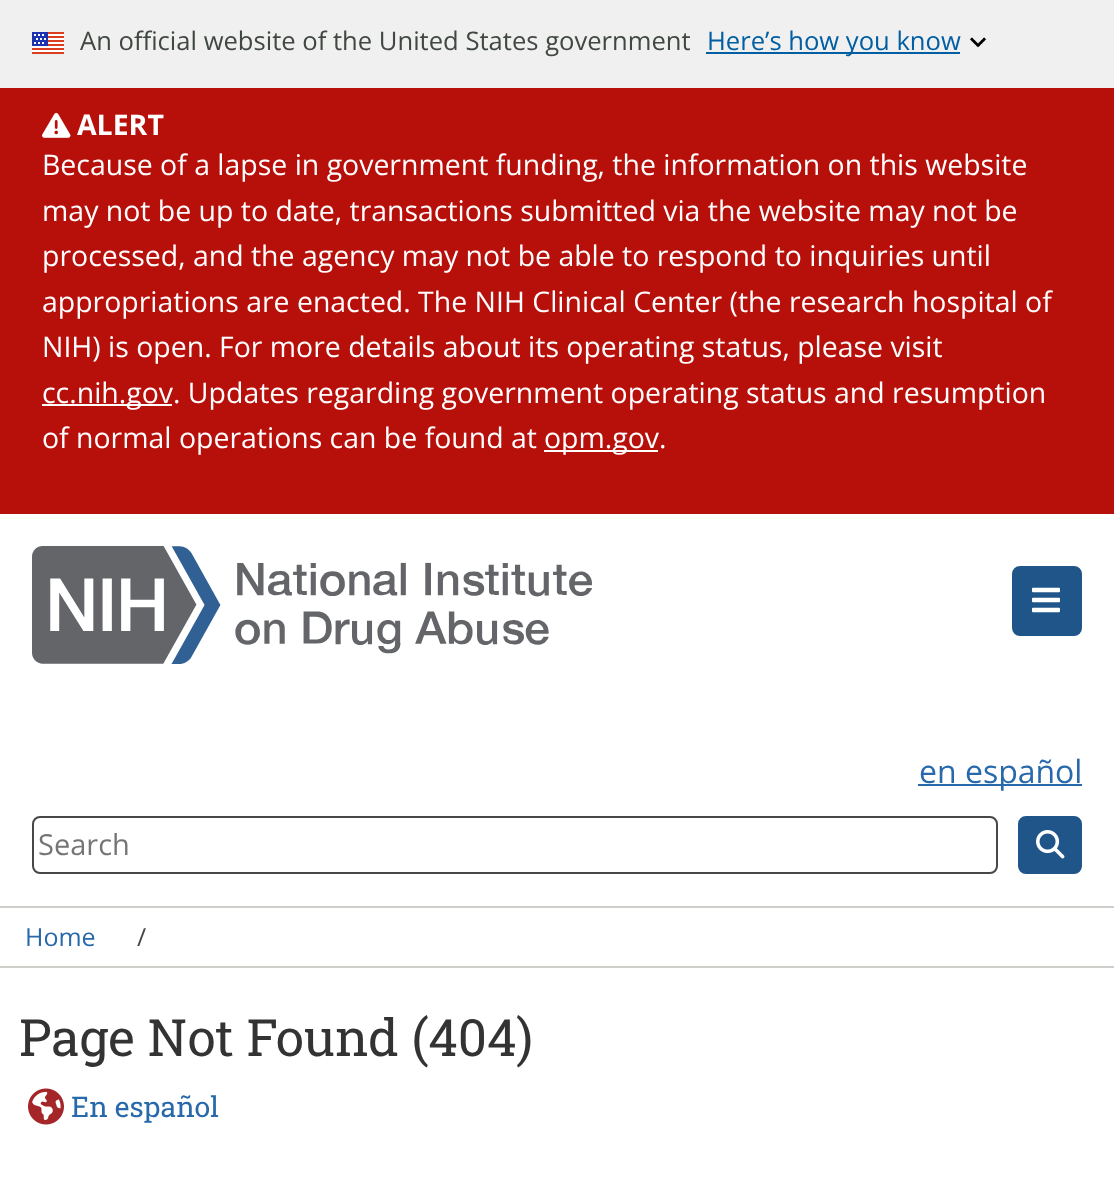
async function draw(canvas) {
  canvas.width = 1114
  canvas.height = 1183
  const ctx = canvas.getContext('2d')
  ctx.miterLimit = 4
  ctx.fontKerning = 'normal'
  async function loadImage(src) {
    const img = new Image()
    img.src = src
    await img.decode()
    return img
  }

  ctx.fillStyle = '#fff'
  ctx.fillRect(0, 0, 1114, 1183)
  ctx.fillStyle = '#f0f0f0'
  ctx.fillRect(0, 0, 1114, 88)
  ctx.drawImage(await loadImage('image0.png'), 32, 32, 32, 22)
  ctx.font = '25.6px Open Sans'
  ctx.fillStyle = '#414841'
  ctx.fillText('An official website of the United States government', 80, 50)
  ctx.fillStyle = '#005ea2'
  ctx.fillRect(706, 52, 254, 2)
  ctx.fillText('Here’s how you know', 707, 50)
  ctx.drawImage(await loadImage('image1.png'), 969, 37, 18, 11)
  ctx.fillStyle = '#b70f0a'
  ctx.fillRect(0, 88, 1114, 426)
  ctx.drawImage(await loadImage('image2.png'), 42, 112, 29, 26)
  ctx.font = 'bold 28.45px Open Sans'
  ctx.fillStyle = '#fff'
  ctx.fillText('ALERT', 77, 135)
  ctx.font = '28.45px Open Sans'
  ctx.fillText('Because of a lapse in government funding, the information on this website', 42, 175)
  ctx.fillText('may not be up to date, transactions submitted via the website may not be', 42, 221)
  ctx.fillText('processed, and the agency may not be able to respond to inquiries until', 42, 266)
  ctx.fillText('appropriations are enacted. The NIH Clinical Center (the research hospital of', 42, 312)
  ctx.fillText('NIH) is open. For more details about its operating status, please visit', 42, 357)
  ctx.fillRect(42, 404, 130, 2)
  ctx.fillText('cc.nih.gov. Updates regarding government operating status and resumption', 42, 403)
  ctx.fillText('of normal operations can be found at', 42, 448)
  ctx.fillRect(544, 450, 114, 2)
  ctx.fillText('opm.gov.', 544, 448)
  ctx.drawImage(await loadImage('image3.png'), 32, 546, 560, 118)
  ctx.fillStyle = '#20558a'
  ctx.beginPath()
  ctx.roundRect(1013, 567, 68, 68, 7)
  ctx.fill()
  ctx.strokeStyle = '#20558a'
  ctx.lineWidth = 2
  ctx.stroke()
  ctx.drawImage(await loadImage('image4.png'), 1032, 587, 28, 26)
  ctx.fillStyle = '#2869ab'
  ctx.fillRect(918, 784, 164, 2)
  ctx.font = '32px Open Sans'
  ctx.fillText('en español', 919, 783)
  ctx.beginPath()
  ctx.roundRect(33, 817, 964, 56, 7)
  ctx.strokeStyle = '#474747'
  ctx.stroke()
  ctx.font = '29px Open Sans'
  ctx.fillStyle = '#757575'
  ctx.fillText('Search', 38, 855)
  ctx.fillStyle = '#20558a'
  ctx.beginPath()
  ctx.roundRect(1019, 817, 62, 56, 7)
  ctx.fill()
  ctx.strokeStyle = '#20558a'
  ctx.stroke()
  ctx.drawImage(await loadImage('image5.png'), 1036, 830, 29, 29)
  ctx.fillStyle = '#cececa'
  ctx.fillRect(0, 906, 1114, 2)
  ctx.fillRect(0, 966, 1114, 2)
  ctx.font = '25px Open Sans'
  ctx.fillStyle = '#2869ab'
  ctx.fillText('Home', 25, 946)
  ctx.fillStyle = '#474747'
  ctx.fillText('/', 137, 946)
  ctx.font = '51.25px Roboto Slab'
  ctx.fillStyle = '#333'
  ctx.fillText('Page Not Found (404)', 19, 1056)
  ctx.drawImage(await loadImage('image6.png'), 28, 1088, 36, 37)
  ctx.font = '28.45px Roboto Slab'
  ctx.fillStyle = '#2869ab'
  ctx.fillText('En español', 71, 1117)
}

draw(document.querySelector('canvas'))
